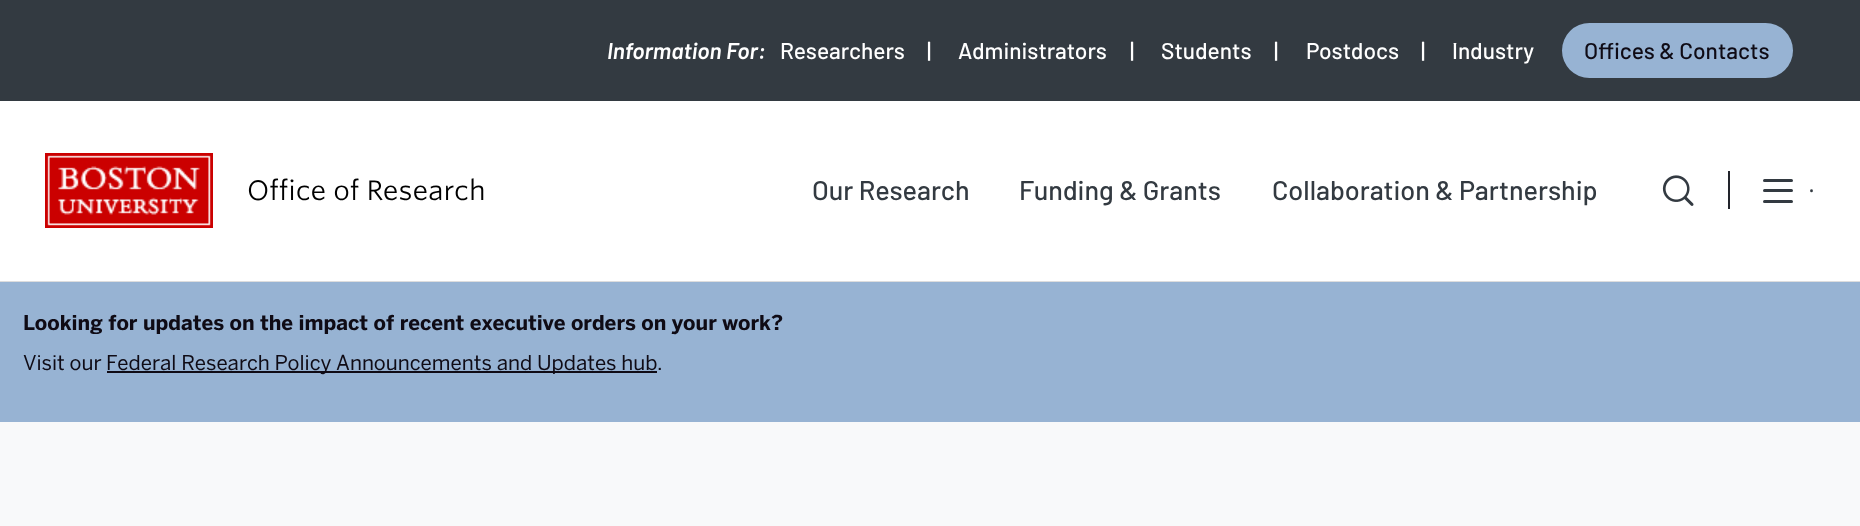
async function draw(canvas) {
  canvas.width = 1860
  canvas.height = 526
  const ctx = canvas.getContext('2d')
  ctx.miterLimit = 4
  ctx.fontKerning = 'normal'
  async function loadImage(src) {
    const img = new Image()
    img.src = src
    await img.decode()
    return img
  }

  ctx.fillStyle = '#333a41'
  ctx.fillRect(0, 0, 1860, 526)
  ctx.font = 'italic 600 22.75px Barlow'
  ctx.fillStyle = '#fff'
  ctx.fillText('Information For:', 607, 59)
  ctx.font = '500 22.75px Barlow'
  ctx.fillText('Researchers', 780, 59)
  ctx.fillText('|', 927, 59)
  ctx.fillText('Administrators', 958, 59)
  ctx.fillText('|', 1130, 59)
  ctx.fillText('Students', 1161, 59)
  ctx.fillText('|', 1274, 59)
  ctx.fillText('Postdocs', 1306, 59)
  ctx.fillText('|', 1421, 59)
  ctx.fillText('Industry', 1452, 59)
  ctx.fillStyle = '#97b3d3'
  ctx.beginPath()
  ctx.roundRect(1562, 23, 231, 55, 27.5)
  ctx.fill()
  ctx.fillStyle = '#0f0b15'
  ctx.fillText('Offices & Contacts', 1584, 59)
  ctx.fillStyle = '#fff'
  ctx.fillRect(0, 101, 1860, 180)
  ctx.fillStyle = '#ddd'
  ctx.fillRect(0, 281, 1860, 1)
  ctx.drawImage(await loadImage('image0.png'), 45, 153, 168, 75)
  ctx.font = '27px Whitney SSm'
  ctx.fillStyle = '#000'
  ctx.fillText('Office of Research', 247, 200)
  ctx.font = '500 27px Barlow'
  ctx.fillStyle = '#333a41'
  ctx.fillText('Our Research', 812, 200)
  ctx.fillText('Funding & Grants', 1019, 200)
  ctx.fillText('Collaboration & Partnership', 1272, 200)
  ctx.drawImage(await loadImage('image1.png'), 1662, 175, 32, 31)
  ctx.fillStyle = '#22242b'
  ctx.fillRect(1728, 171, 2, 38)
  ctx.fillStyle = '#333a41'
  ctx.beginPath()
  ctx.roundRect(1763, 179, 30, 3, 1.5)
  ctx.fill()
  ctx.beginPath()
  ctx.roundRect(1763, 189, 30, 3, 1.5)
  ctx.fill()
  ctx.beginPath()
  ctx.roundRect(1763, 200, 30, 3, 1.5)
  ctx.fill()
  ctx.beginPath()
  ctx.moveTo(1811.5, 190.5)
  ctx.lineTo(1811.5, 191)
  ctx.strokeStyle = '#333a41'
  ctx.lineWidth = 2.7
  ctx.lineCap = 'round'
  ctx.lineJoin = 'round'
  ctx.stroke()
  ctx.fillStyle = '#97b3d3'
  ctx.fillRect(0, 282, 1860, 140)
  ctx.font = 'bold 20.4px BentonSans'
  ctx.fillStyle = '#0f0b15'
  ctx.fillText('Looking for updates on the impact of recent executive orders on your work?', 23, 330)
  ctx.font = '20.4px BentonSans'
  ctx.fillText('Visit our', 23, 370)
  ctx.fillRect(107, 371, 550, 2)
  ctx.fillText('Federal Research Policy Announcements and Updates hub', 106, 370)
  ctx.fillText('.', 657, 370)
  ctx.fillStyle = '#f8f9fa'
  ctx.fillRect(0, 422, 1860, 104)
}

draw(document.querySelector('canvas'))
